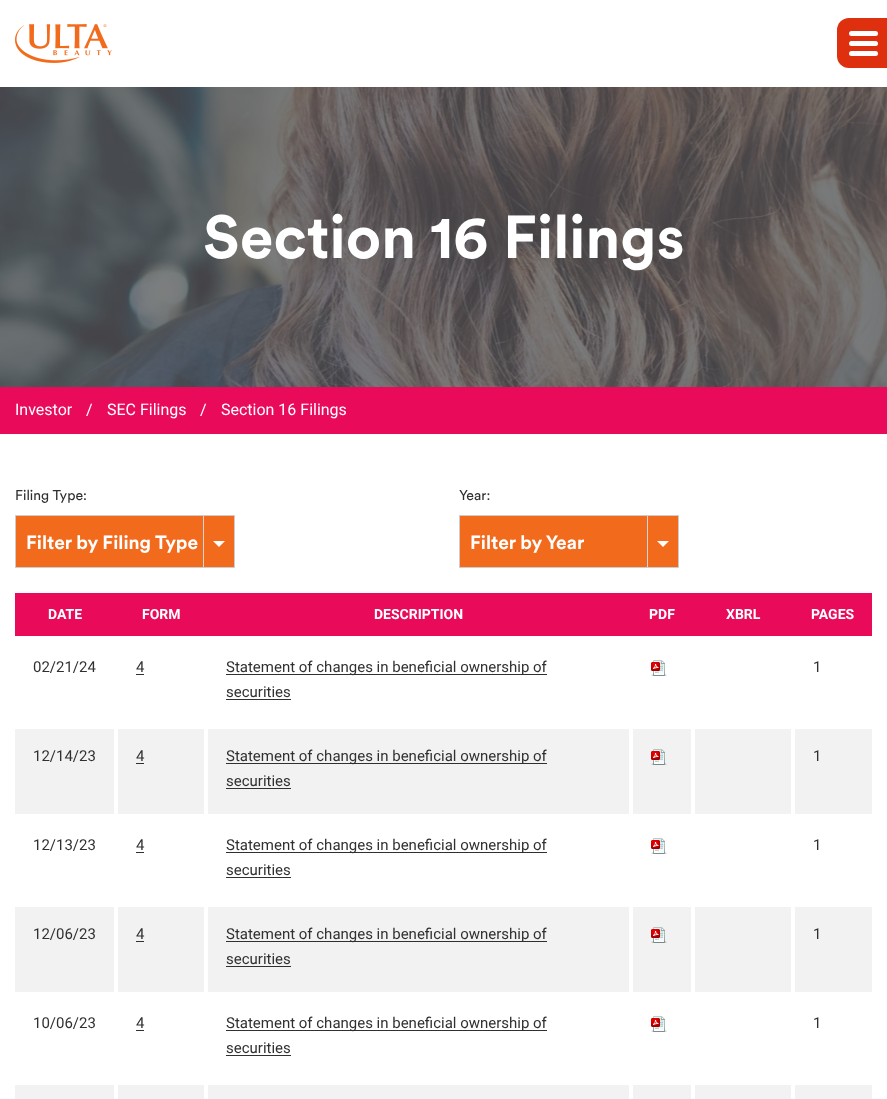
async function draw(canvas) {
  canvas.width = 887
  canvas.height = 1099
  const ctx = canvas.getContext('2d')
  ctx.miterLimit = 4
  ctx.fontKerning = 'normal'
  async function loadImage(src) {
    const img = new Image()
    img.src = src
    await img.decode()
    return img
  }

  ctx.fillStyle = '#fff'
  ctx.fillRect(0, 0, 887, 1099)
  ctx.drawImage(await loadImage('image0.png'), 15, 24, 97, 39)
  ctx.fillStyle = '#de2f0f'
  ctx.beginPath()
  ctx.roundRect(837, 18, 50, 50, [12, 0, 0, 12])
  ctx.fill()
  ctx.fillStyle = '#fff'
  ctx.beginPath()
  ctx.roundRect(849, 31, 29, 5, 2.5)
  ctx.fill()
  ctx.beginPath()
  ctx.roundRect(849, 41, 29, 5, 2.5)
  ctx.fill()
  ctx.beginPath()
  ctx.roundRect(849, 51, 29, 5, 2.5)
  ctx.fill()
  ctx.drawImage(await loadImage('image1.png'), 0, 87, 887, 300)
  ctx.font = 'bold 60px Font'
  ctx.fillText('Section 16 Filings', 203, 258)
  ctx.fillStyle = '#e90b5a'
  ctx.fillRect(0, 387, 887, 47)
  ctx.font = '16px Roboto'
  ctx.fillStyle = '#fff'
  ctx.fillText('Investor', 15, 415)
  ctx.fillText('/', 86, 415)
  ctx.fillText('SEC Filings', 107, 415)
  ctx.fillText('/', 200, 415)
  ctx.fillText('Section 16 Filings', 221, 415)
  ctx.font = '14px Font'
  ctx.fillStyle = '#303030'
  ctx.fillText('Filing Type:', 15, 500)
  ctx.fillStyle = '#f26b1c'
  ctx.beginPath()
  ctx.rect(15.5, 515.5, 219, 52)
  ctx.fill()
  ctx.strokeStyle = '#ccc'
  ctx.stroke()
  ctx.font = 'bold 19px Font'
  ctx.fillStyle = '#fff'
  ctx.fillText('Filter by Filing Type', 26, 549)
  ctx.fillStyle = '#d7d7d7'
  ctx.fillRect(203, 516, 1, 51)
  ctx.fillStyle = '#fff'
  ctx.beginPath()
  ctx.moveTo(213, 541)
  ctx.lineTo(225, 541)
  ctx.lineTo(219, 547)
  ctx.closePath()
  ctx.fill()
  ctx.font = '14px Font'
  ctx.fillStyle = '#303030'
  ctx.fillText('Year:', 459, 500)
  ctx.fillStyle = '#f26b1c'
  ctx.beginPath()
  ctx.rect(459.5, 515.5, 219, 52)
  ctx.fill()
  ctx.stroke()
  ctx.font = 'bold 19px Font'
  ctx.fillStyle = '#fff'
  ctx.fillText('Filter by Year', 470, 549)
  ctx.fillStyle = '#d7d7d7'
  ctx.fillRect(647, 516, 1, 51)
  ctx.fillStyle = '#fff'
  ctx.beginPath()
  ctx.moveTo(657, 541)
  ctx.lineTo(669, 541)
  ctx.lineTo(663, 547)
  ctx.closePath()
  ctx.fill()
  ctx.fillStyle = '#e90b5a'
  ctx.fillRect(15, 593, 857, 43)
  ctx.font = 'bold 14px Roboto'
  ctx.fillStyle = '#fff'
  ctx.fillText('DATE', 48, 619)
  ctx.fillText('FORM', 142, 619)
  ctx.fillText('DESCRIPTION', 374, 619)
  ctx.fillText('PDF', 649, 619)
  ctx.fillText('XBRL', 726, 619)
  ctx.fillText('PAGES', 811, 619)
  ctx.font = '15px Roboto'
  ctx.fillStyle = '#303030'
  ctx.fillText('02/21/24', 33, 672)
  ctx.fillText('4', 136, 672)
  ctx.fillRect(136, 674, 8, 1)
  ctx.fillRect(226, 674, 321, 1)
  ctx.fillText('Statement of changes in beneficial ownership of', 226, 672)
  ctx.fillText('securities', 226, 697)
  ctx.fillRect(226, 699, 65, 1)
  ctx.drawImage(await loadImage('image2.png'), 651, 660, 16, 16)
  ctx.fillText('1', 813, 672)
  ctx.fillStyle = '#f2f2f2'
  ctx.fillRect(15, 729, 99, 85)
  ctx.fillStyle = '#303030'
  ctx.fillText('12/14/23', 33, 761)
  ctx.fillStyle = '#f2f2f2'
  ctx.fillRect(118, 729, 86, 85)
  ctx.fillStyle = '#303030'
  ctx.fillText('4', 136, 761)
  ctx.fillRect(136, 763, 8, 1)
  ctx.fillStyle = '#f2f2f2'
  ctx.fillRect(208, 729, 421, 85)
  ctx.fillStyle = '#303030'
  ctx.fillRect(226, 763, 321, 1)
  ctx.fillText('Statement of changes in beneficial ownership of', 226, 761)
  ctx.fillText('securities', 226, 786)
  ctx.fillRect(226, 788, 65, 1)
  ctx.fillStyle = '#f2f2f2'
  ctx.fillRect(633, 729, 58, 85)
  ctx.drawImage(await loadImage('image3.png'), 651, 749, 16, 16)
  ctx.fillRect(695, 729, 96, 85)
  ctx.fillRect(795, 729, 77, 85)
  ctx.fillStyle = '#303030'
  ctx.fillText('1', 813, 761)
  ctx.fillText('12/13/23', 33, 850)
  ctx.fillText('4', 136, 850)
  ctx.fillRect(136, 852, 8, 1)
  ctx.fillRect(226, 852, 321, 1)
  ctx.fillText('Statement of changes in beneficial ownership of', 226, 850)
  ctx.fillText('securities', 226, 875)
  ctx.fillRect(226, 877, 65, 1)
  ctx.drawImage(await loadImage('image2.png'), 651, 838, 16, 16)
  ctx.fillText('1', 813, 850)
  ctx.fillStyle = '#f2f2f2'
  ctx.fillRect(15, 907, 99, 85)
  ctx.fillStyle = '#303030'
  ctx.fillText('12/06/23', 33, 939)
  ctx.fillStyle = '#f2f2f2'
  ctx.fillRect(118, 907, 86, 85)
  ctx.fillStyle = '#303030'
  ctx.fillText('4', 136, 939)
  ctx.fillRect(136, 941, 8, 1)
  ctx.fillStyle = '#f2f2f2'
  ctx.fillRect(208, 907, 421, 85)
  ctx.fillStyle = '#303030'
  ctx.fillRect(226, 941, 321, 1)
  ctx.fillText('Statement of changes in beneficial ownership of', 226, 939)
  ctx.fillText('securities', 226, 964)
  ctx.fillRect(226, 966, 65, 1)
  ctx.fillStyle = '#f2f2f2'
  ctx.fillRect(633, 907, 58, 85)
  ctx.drawImage(await loadImage('image3.png'), 651, 927, 16, 16)
  ctx.fillRect(695, 907, 96, 85)
  ctx.fillRect(795, 907, 77, 85)
  ctx.fillStyle = '#303030'
  ctx.fillText('1', 813, 939)
  ctx.fillText('10/06/23', 33, 1028)
  ctx.fillText('4', 136, 1028)
  ctx.fillRect(136, 1030, 8, 1)
  ctx.fillRect(226, 1030, 321, 1)
  ctx.fillText('Statement of changes in beneficial ownership of', 226, 1028)
  ctx.fillText('securities', 226, 1053)
  ctx.fillRect(226, 1055, 65, 1)
  ctx.drawImage(await loadImage('image2.png'), 651, 1016, 16, 16)
  ctx.fillText('1', 813, 1028)
  ctx.fillStyle = '#f2f2f2'
  ctx.fillRect(15, 1085, 99, 14)
  ctx.fillRect(118, 1085, 86, 14)
  ctx.fillRect(208, 1085, 421, 14)
  ctx.fillRect(633, 1085, 58, 14)
  ctx.fillRect(695, 1085, 96, 14)
  ctx.fillRect(795, 1085, 77, 14)
}

draw(document.querySelector('canvas'))
